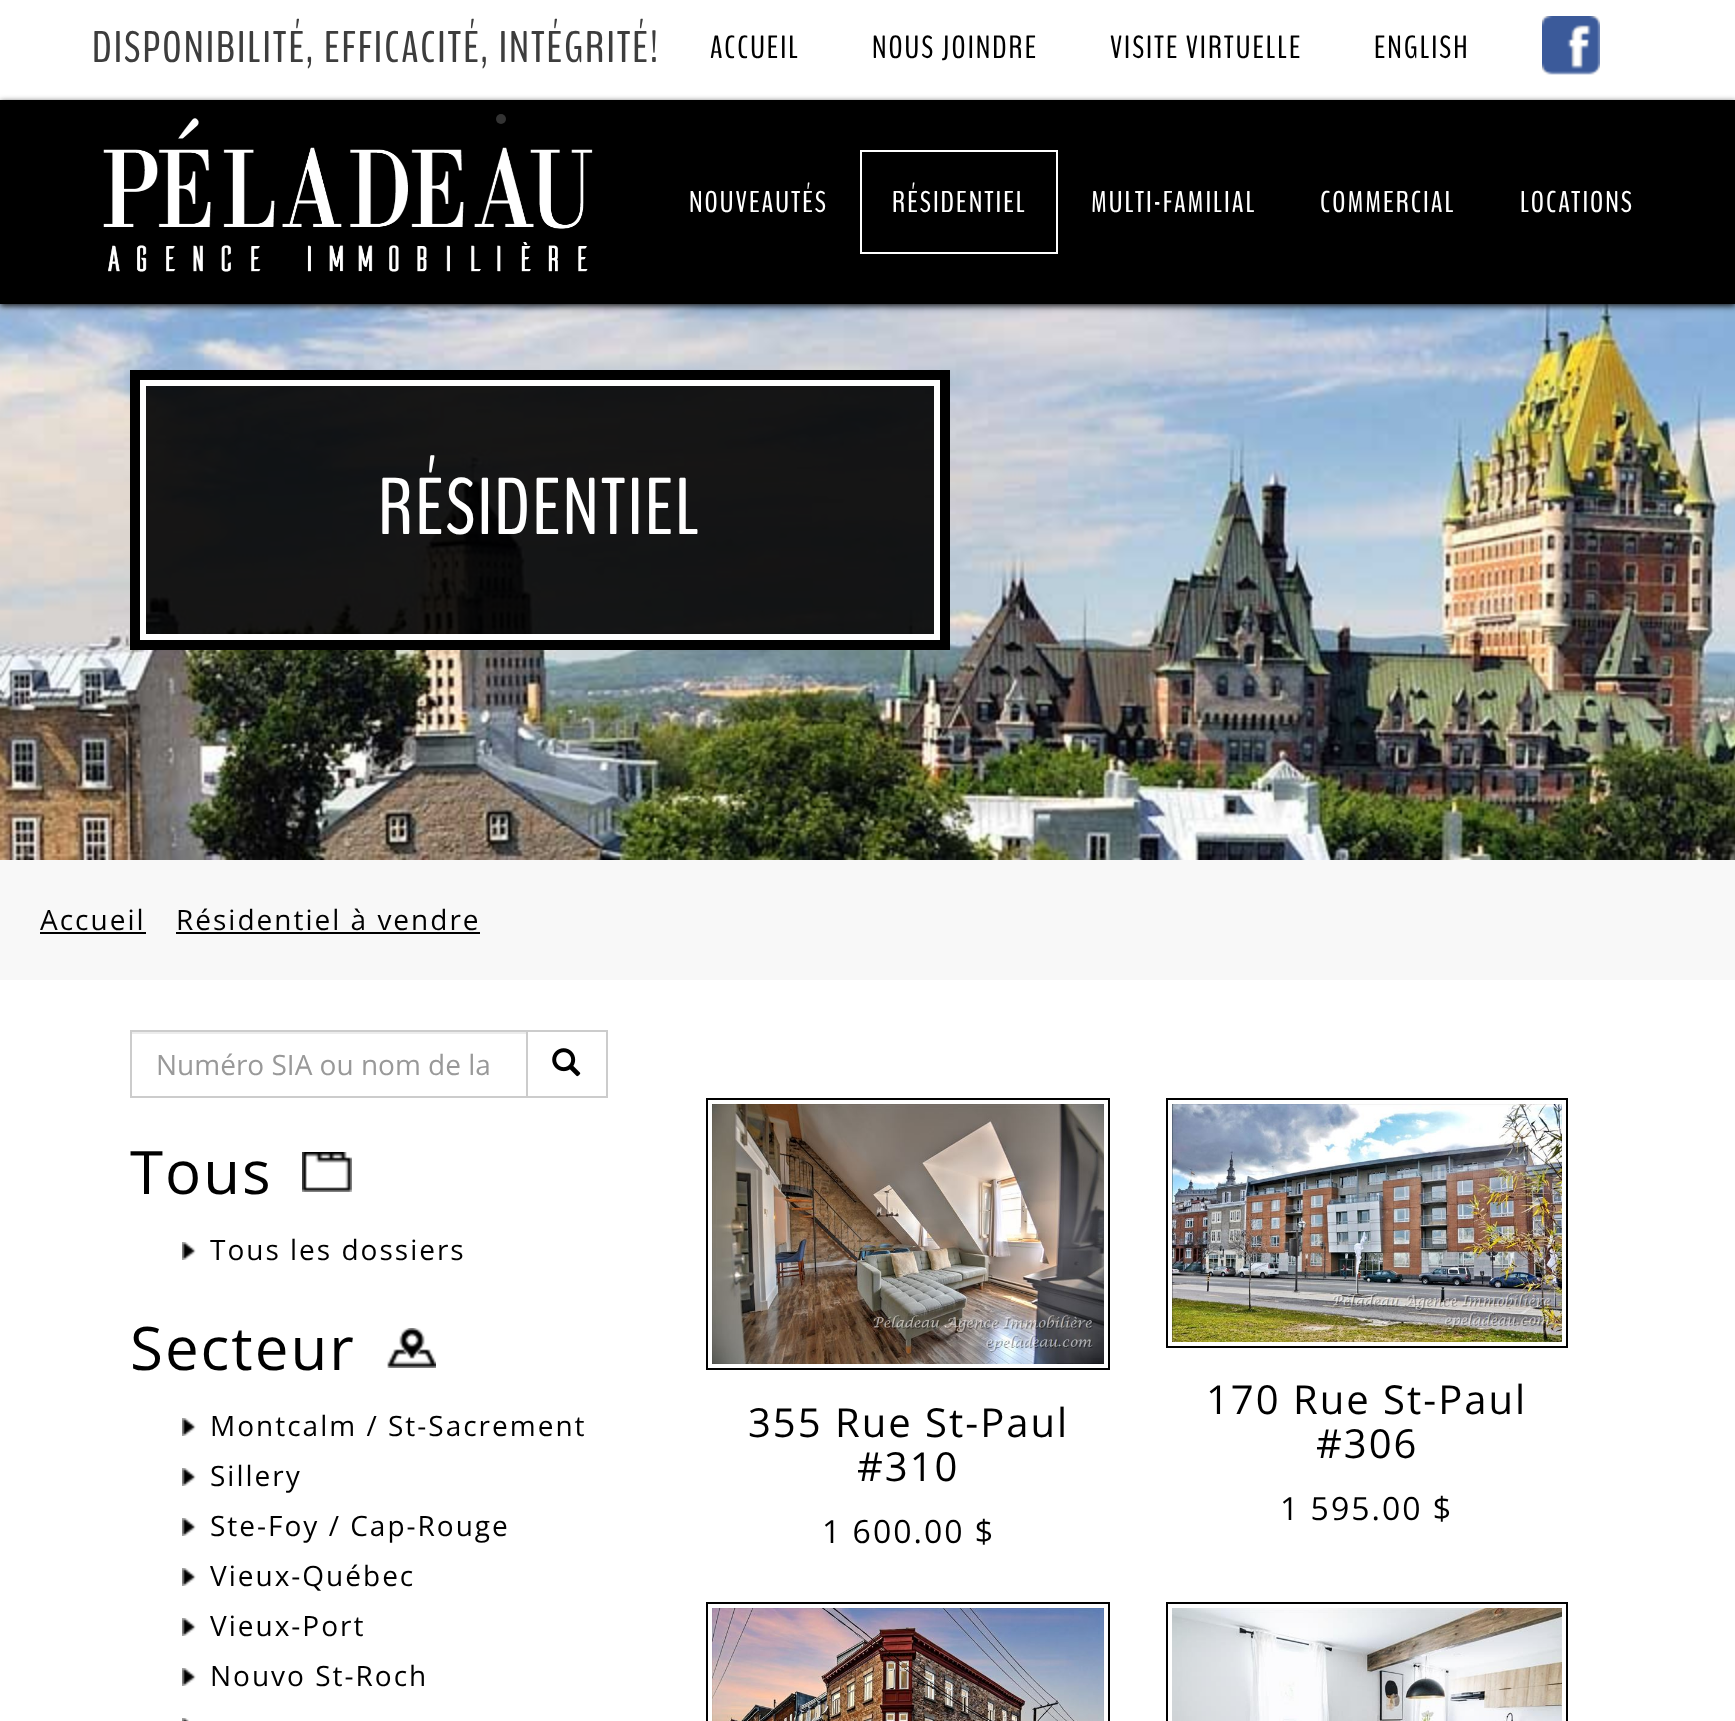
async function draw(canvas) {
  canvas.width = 1735
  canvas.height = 1721
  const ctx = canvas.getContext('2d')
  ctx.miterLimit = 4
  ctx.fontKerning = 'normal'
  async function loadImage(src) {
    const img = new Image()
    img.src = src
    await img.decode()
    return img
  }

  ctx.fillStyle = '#fff'
  ctx.fillRect(0, 0, 1735, 1721)
  ctx.letterSpacing = '2px'
  ctx.font = '44px BenchNine'
  ctx.fillStyle = '#3d3d3d'
  ctx.fillText('DISPONIBILITÉ, EFFICACITÉ, INTÉGRITÉ!', 92, 62)
  ctx.font = '32px BenchNine'
  ctx.fillStyle = '#000'
  ctx.fillText('ACCUEIL', 710, 58)
  ctx.fillText('NOUS JOINDRE', 872, 58)
  ctx.fillText('VISITE VIRTUELLE', 1110, 58)
  ctx.fillText('ENGLISH', 1374, 58)
  ctx.drawImage(await loadImage('image0.png'), 1542, 16, 58, 59)
  ctx.drawImage(await loadImage('image2.png'), 0, 304, 1735, 556)
  ctx.fillStyle = '#171717'
  ctx.filter = 'blur(3px)'
  ctx.beginPath()
  ctx.rect(0, 102, 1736, 204)
  ctx.fill()
  ctx.filter = 'none'
  ctx.fillStyle = '#000'
  ctx.fillRect(0, 100, 1735, 204)
  ctx.drawImage(await loadImage('image1.png'), 103, 118, 490, 154)
  ctx.fillStyle = '#333'
  ctx.beginPath()
  ctx.arc(501, 119, 5, 0, 2 * Math.PI)
  ctx.fill()
  ctx.font = '30px BenchNine'
  ctx.fillStyle = '#fff'
  ctx.fillText('NOUVEAUTÉS', 689, 212)
  ctx.strokeStyle = '#fff'
  ctx.lineWidth = 2
  ctx.strokeRect(861, 151, 196, 102)
  ctx.fillText('RÉSIDENTIEL', 892, 212)
  ctx.fillText('MULTI-FAMILIAL', 1091, 212)
  ctx.fillText('COMMERCIAL', 1320, 212)
  ctx.fillText('LOCATIONS', 1520, 212)
  ctx.strokeStyle = '#000'
  ctx.lineWidth = 10
  ctx.strokeRect(135, 375, 810, 270)
  ctx.fillStyle = '#000000e6'
  ctx.beginPath()
  ctx.rect(143, 383, 794, 254)
  ctx.fill()
  ctx.strokeStyle = '#fff'
  ctx.lineWidth = 6
  ctx.stroke()
  ctx.font = '80px BenchNine'
  ctx.fillStyle = '#fff'
  ctx.fillText('RÉSIDENTIEL', 378, 534)
  ctx.fillStyle = '#f8f8f8'
  ctx.fillRect(0, 860, 1735, 120)
  ctx.font = '28px Open Sans'
  ctx.fillStyle = '#000'
  ctx.fillText('Accueil', 40, 930)
  ctx.fillRect(40, 932, 106, 2)
  ctx.fillText('Résidentiel à vendre', 176, 930)
  ctx.fillRect(176, 932, 304, 2)
  ctx.fillStyle = '#ececec'
  ctx.fillRect(132, 1032, 394, 2)
  ctx.strokeStyle = '#ccc'
  ctx.lineWidth = 2
  ctx.strokeRect(527, 1031, 80, 66)
  ctx.strokeRect(131, 1031, 396, 66)
  ctx.letterSpacing = '0px'
  ctx.fillStyle = '#999'
  ctx.fillText('Numéro SIA ou nom de la', 156, 1075)
  ctx.drawImage(await loadImage('image3.png'), 552, 1048, 29, 29)
  ctx.letterSpacing = '2px'
  ctx.font = '60px Open Sans'
  ctx.fillStyle = '#000'
  ctx.fillText('Tous', 130, 1194)
  ctx.drawImage(await loadImage('image4.png'), 302, 1152, 50, 40)
  ctx.drawImage(await loadImage('image5.png'), 182, 1242, 14, 18)
  ctx.font = '28px Open Sans'
  ctx.fillText('Tous les dossiers', 210, 1260)
  ctx.font = '60px Open Sans'
  ctx.fillText('Secteur', 130, 1370)
  ctx.drawImage(await loadImage('image6.png'), 387, 1328, 49, 40)
  ctx.drawImage(await loadImage('image5.png'), 182, 1418, 14, 18)
  ctx.font = '28px Open Sans'
  ctx.fillText('Montcalm / St-Sacrement', 210, 1436)
  ctx.drawImage(await loadImage('image5.png'), 182, 1468, 14, 18)
  ctx.fillText('Sillery', 210, 1486)
  ctx.drawImage(await loadImage('image5.png'), 182, 1518, 14, 18)
  ctx.fillText('Ste-Foy / Cap-Rouge', 210, 1536)
  ctx.drawImage(await loadImage('image5.png'), 182, 1568, 14, 18)
  ctx.fillText('Vieux-Québec', 210, 1586)
  ctx.drawImage(await loadImage('image5.png'), 182, 1618, 14, 18)
  ctx.fillText('Vieux-Port', 210, 1636)
  ctx.drawImage(await loadImage('image5.png'), 182, 1668, 14, 18)
  ctx.fillText('Nouvo St-Roch', 210, 1686)
  ctx.drawImage(await loadImage('image7.png'), 182, 1718, 7, 3)
  ctx.strokeStyle = '#000'
  ctx.strokeRect(707, 1099, 402, 270)
  ctx.drawImage(await loadImage('image8.png'), 712, 1104, 392, 260)
  ctx.font = '40px Open Sans'
  ctx.fillText('355 Rue St-Paul', 748, 1437)
  ctx.fillText('#310', 857, 1481)
  ctx.font = '32px Open Sans'
  ctx.fillText('1 600.00 $', 822, 1543)
  ctx.strokeRect(1167, 1099, 400, 248)
  ctx.drawImage(await loadImage('image9.png'), 1172, 1104, 390, 238)
  ctx.font = '40px Open Sans'
  ctx.fillText('170 Rue St-Paul', 1206, 1414)
  ctx.fillText('#306', 1316, 1458)
  ctx.font = '32px Open Sans'
  ctx.fillText('1 595.00 $', 1280, 1520)
  ctx.strokeRect(707, 1603, 402, 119)
  ctx.drawImage(await loadImage('image10.png'), 712, 1608, 392, 113)
  ctx.strokeRect(1167, 1603, 400, 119)
  ctx.drawImage(await loadImage('image11.png'), 1172, 1608, 390, 113)
}

draw(document.querySelector('canvas'))
